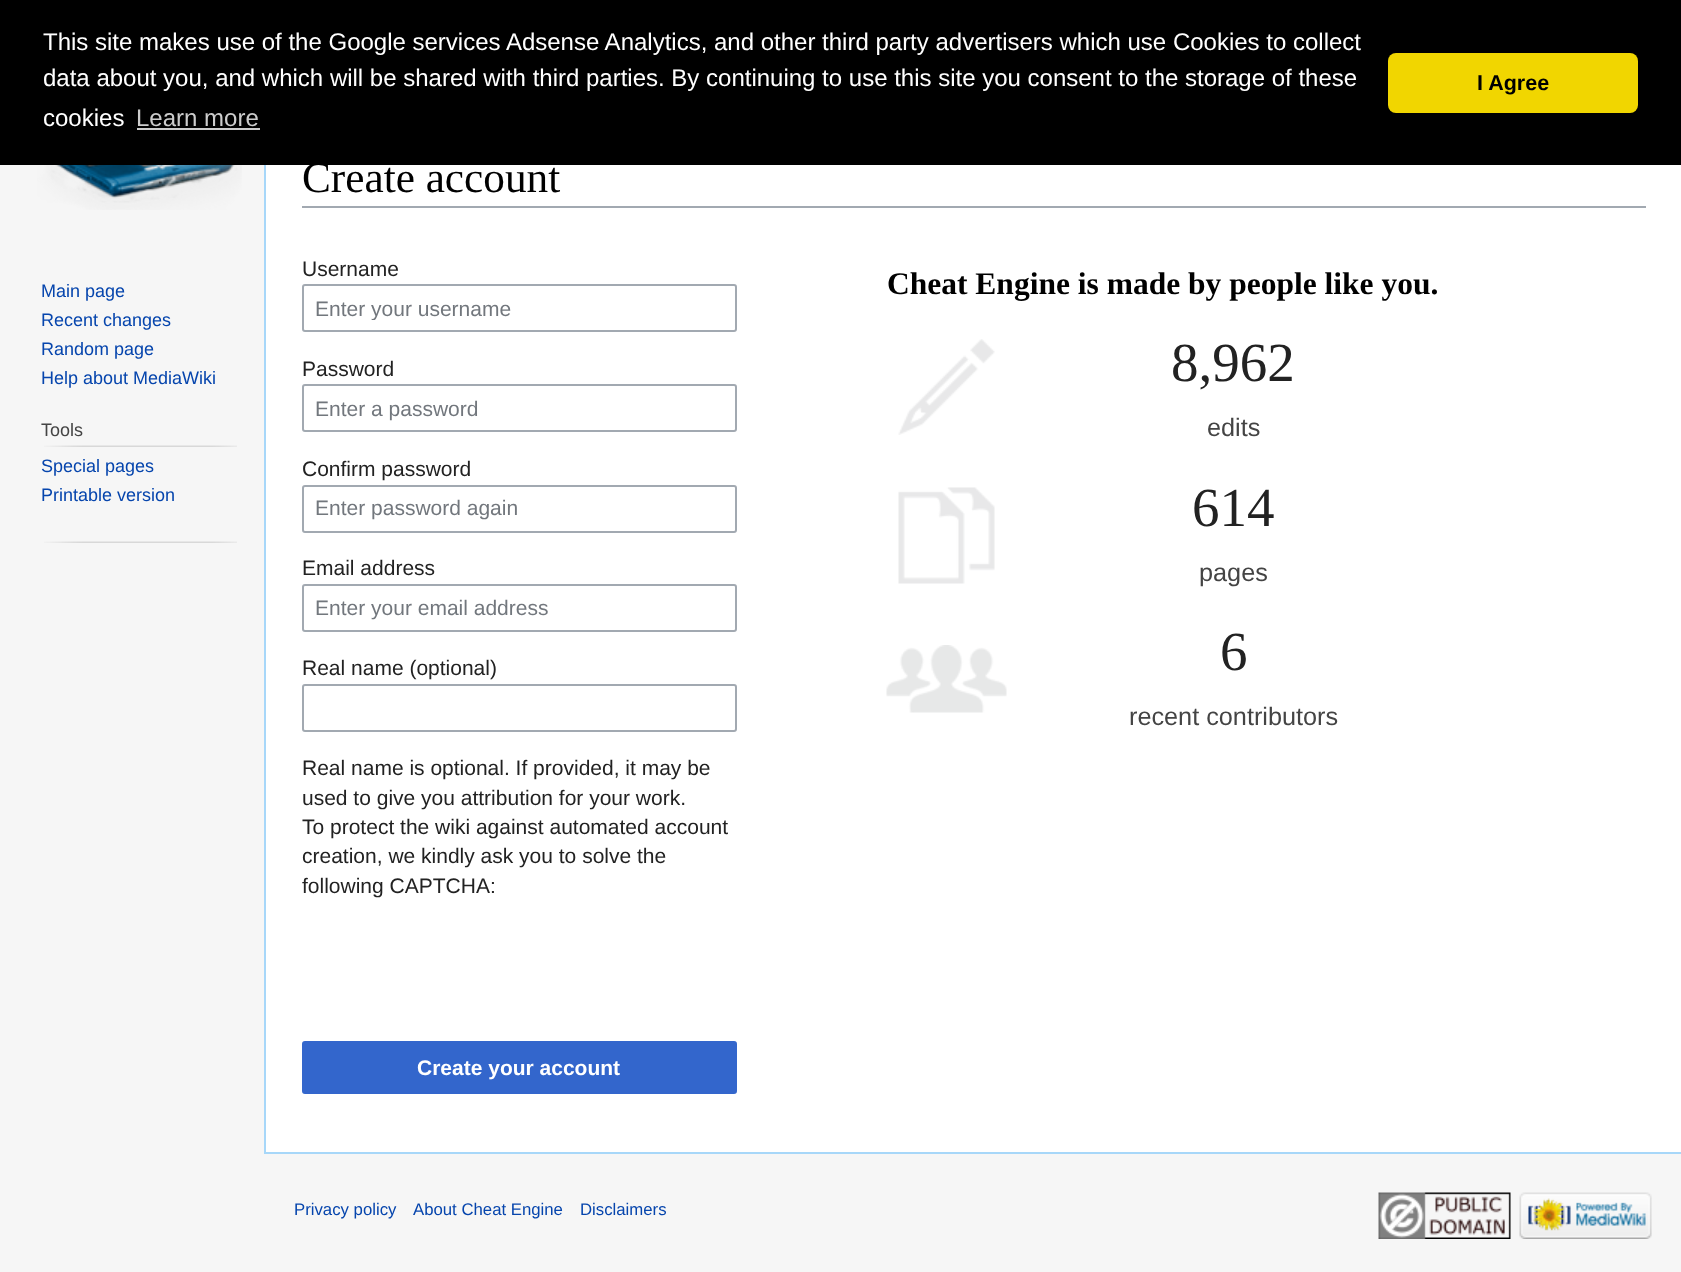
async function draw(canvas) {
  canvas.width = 1681
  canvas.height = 1272
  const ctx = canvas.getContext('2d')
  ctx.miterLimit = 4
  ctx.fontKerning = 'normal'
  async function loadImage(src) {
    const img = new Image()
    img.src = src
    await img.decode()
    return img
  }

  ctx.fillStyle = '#f6f6f6'
  ctx.fillRect(0, 0, 1681, 1272)
  ctx.fillStyle = '#000'
  ctx.fillRect(0, 0, 1681, 165)
  ctx.font = '24px Liberation Sans'
  ctx.fillStyle = '#fff'
  ctx.fillText('This site makes use of the Google services Adsense Analytics, and other third party advertisers which use Cookies to collect', 43, 50)
  ctx.fillText('data about you, and which will be shared with third parties. By continuing to use this site you consent to the storage of these', 43, 86)
  ctx.fillText('cookies', 43, 126)
  ctx.fillStyle = '#ccc'
  ctx.fillText('Learn more', 136, 126)
  ctx.fillRect(137, 128, 123, 2)
  ctx.fillStyle = '#f1d600'
  ctx.beginPath()
  ctx.roundRect(1388, 53, 250, 60, 8)
  ctx.fill()
  ctx.font = 'bold 21.5px Liberation Sans'
  ctx.fillStyle = '#000'
  ctx.fillText('I Agree', 1477, 90)
  ctx.drawImage(await loadImage('image0.png'), 37, 165, 205, 45)
  ctx.font = '18px Liberation Sans'
  ctx.fillStyle = '#0645ad'
  ctx.fillText('Main page', 41, 297)
  ctx.fillText('Recent changes', 41, 326)
  ctx.fillText('Random page', 41, 355)
  ctx.fillText('Help about MediaWiki', 41, 384)
  ctx.fillStyle = '#444'
  ctx.fillText('Tools', 41, 436)
  ctx.drawImage(await loadImage('image1.png'), 44, 445, 193, 2)
  ctx.fillStyle = '#0645ad'
  ctx.fillText('Special pages', 41, 472)
  ctx.fillText('Printable version', 41, 501)
  ctx.drawImage(await loadImage('image1.png'), 44, 541, 193, 2)
  ctx.fillStyle = '#fff'
  ctx.fillRect(266, 165, 1415, 987)
  ctx.fillStyle = '#a7d7f9'
  ctx.fillRect(264, 1152, 1417, 2)
  ctx.fillRect(264, 165, 2, 989)
  ctx.fillStyle = '#a2a9b1'
  ctx.fillRect(302, 206, 1344, 2)
  ctx.font = '43.25px Liberation Serif'
  ctx.fillStyle = '#000'
  ctx.fillText('Create account', 302, 192)
  ctx.font = '21px Liberation Sans'
  ctx.fillStyle = '#222'
  ctx.fillText('Username', 302, 276)
  ctx.beginPath()
  ctx.roundRect(303, 285, 433, 46, 2)
  ctx.strokeStyle = '#a2a9b1'
  ctx.lineWidth = 2
  ctx.stroke()
  ctx.save()
  ctx.beginPath()
  ctx.rect(315, 296, 408, 24)
  ctx.clip()
  ctx.fillStyle = '#72777d'
  ctx.fillText('Enter your username', 315, 316)
  ctx.restore()
  ctx.fillText('Password', 302, 376)
  ctx.beginPath()
  ctx.roundRect(303, 385, 433, 46, 2)
  ctx.stroke()
  ctx.fillStyle = '#72777d'
  ctx.fillText('Enter a password', 315, 416)
  ctx.fillStyle = '#222'
  ctx.fillText('Confirm password', 302, 476)
  ctx.beginPath()
  ctx.roundRect(303, 486, 433, 46, 2)
  ctx.stroke()
  ctx.fillStyle = '#72777d'
  ctx.fillText('Enter password again', 315, 515)
  ctx.fillStyle = '#222'
  ctx.fillText('Email address', 302, 575)
  ctx.beginPath()
  ctx.roundRect(303, 585, 433, 46, 2)
  ctx.stroke()
  ctx.fillStyle = '#72777d'
  ctx.fillText('Enter your email address', 315, 615)
  ctx.fillStyle = '#222'
  ctx.fillText('Real name (optional)', 302, 675)
  ctx.beginPath()
  ctx.roundRect(303, 685, 433, 46, 2)
  ctx.stroke()
  ctx.fillText('Real name is optional. If provided, it may be', 302, 775)
  ctx.fillText('used to give you attribution for your work.', 302, 805)
  ctx.fillText('To protect the wiki against automated account', 302, 834)
  ctx.fillText('creation, we kindly ask you to solve the', 302, 863)
  ctx.fillText('following CAPTCHA:', 302, 893)
  ctx.fillStyle = '#36c'
  ctx.beginPath()
  ctx.roundRect(303, 1042, 433, 51, 2)
  ctx.fill()
  ctx.strokeStyle = '#36c'
  ctx.stroke()
  ctx.font = 'bold 21px Liberation Sans'
  ctx.fillStyle = '#fff'
  ctx.fillText('Create your account', 417, 1075)
  ctx.font = 'bold 31.5px Liberation Serif'
  ctx.fillStyle = '#000'
  ctx.fillText('Cheat Engine is made by people like you.', 887, 294)
  ctx.drawImage(await loadImage('image2.png'), 898, 339, 97, 96)
  ctx.font = '55px Liberation Serif'
  ctx.fillStyle = '#222'
  ctx.fillText('8,962', 1171, 381)
  ctx.font = '25.25px Liberation Sans'
  ctx.fillStyle = '#444'
  ctx.fillText('edits', 1207, 436)
  ctx.drawImage(await loadImage('image3.png'), 898, 487, 97, 97)
  ctx.font = '55px Liberation Serif'
  ctx.fillStyle = '#222'
  ctx.fillText('614', 1192, 526)
  ctx.font = '25.25px Liberation Sans'
  ctx.fillStyle = '#444'
  ctx.fillText('pages', 1199, 581)
  ctx.drawImage(await loadImage('image4.png'), 886, 645, 121, 68)
  ctx.font = '55px Liberation Serif'
  ctx.fillStyle = '#222'
  ctx.fillText('6', 1220, 670)
  ctx.font = '25.25px Liberation Sans'
  ctx.fillStyle = '#444'
  ctx.fillText('recent contributors', 1129, 725)
  ctx.font = '16.75px Liberation Sans'
  ctx.fillStyle = '#0645ad'
  ctx.fillText('Privacy policy', 294, 1215)
  ctx.fillText('About Cheat Engine', 413, 1215)
  ctx.fillText('Disclaimers', 580, 1215)
  ctx.drawImage(await loadImage('image5.png'), 1378, 1192, 133, 47)
  ctx.drawImage(await loadImage('image6.png'), 1519, 1192, 133, 47)
}

draw(document.querySelector('canvas'))
